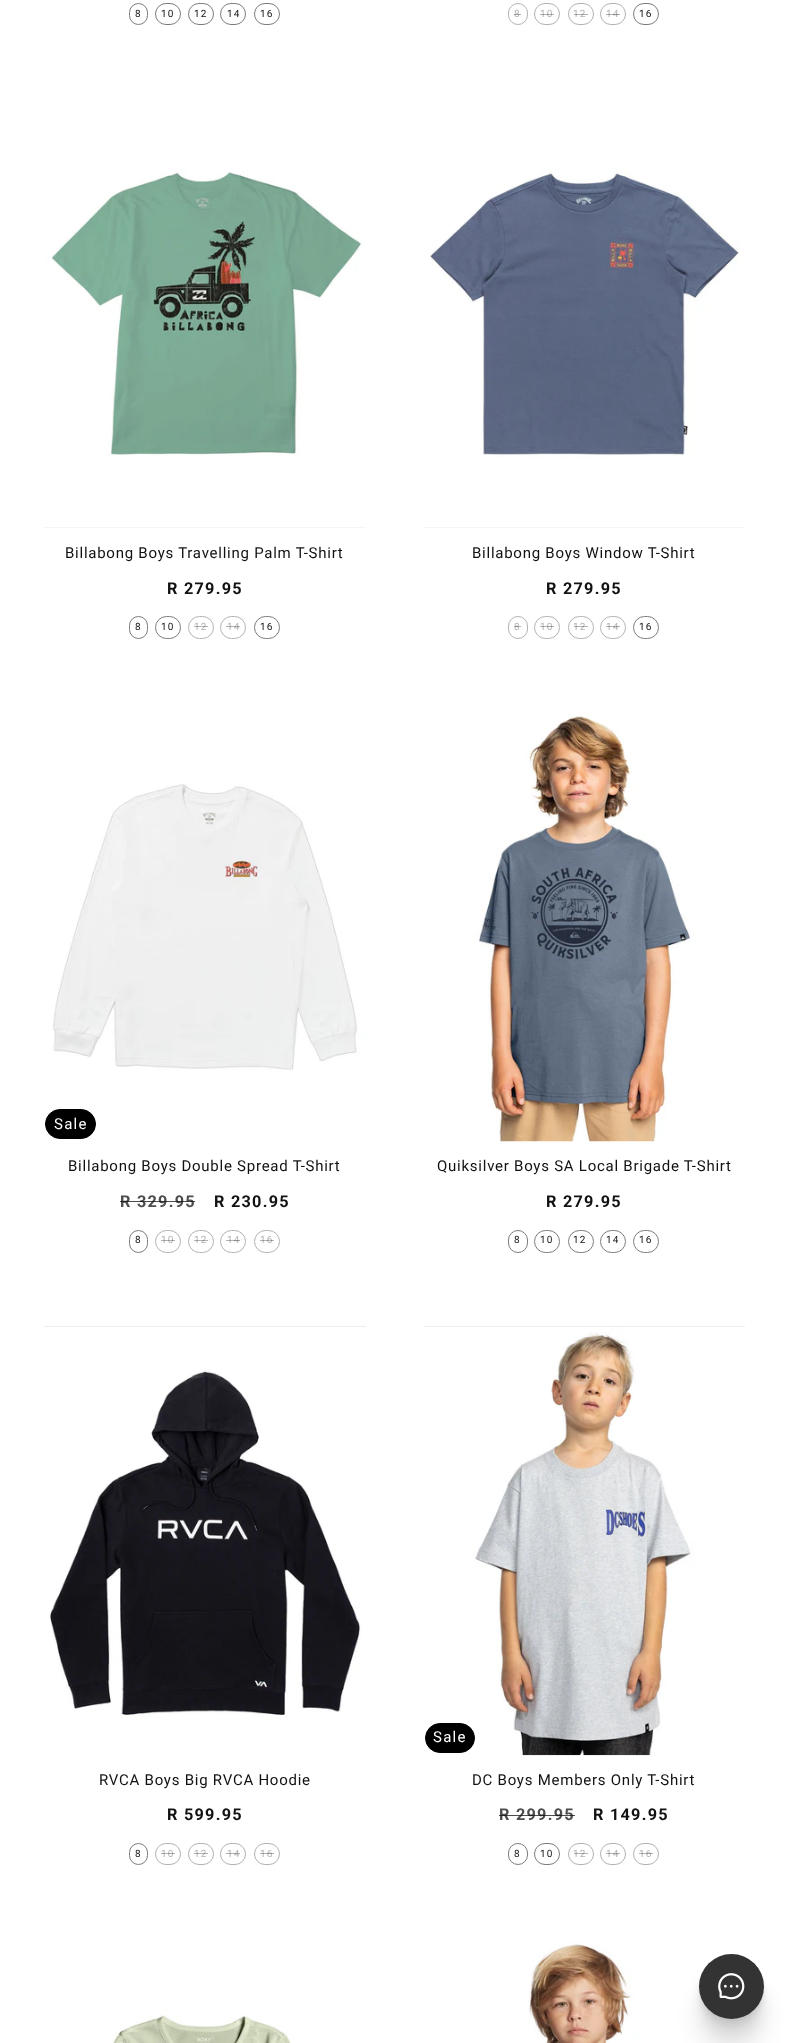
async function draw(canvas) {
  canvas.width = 788
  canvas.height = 2043
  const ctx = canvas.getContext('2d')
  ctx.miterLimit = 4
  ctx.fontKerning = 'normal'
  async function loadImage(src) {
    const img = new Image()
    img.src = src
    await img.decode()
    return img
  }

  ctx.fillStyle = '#fff'
  ctx.fillRect(0, 0, 788, 2043)
  ctx.beginPath()
  ctx.roundRect(129.5, 3.5, 18, 21, 9)
  ctx.strokeStyle = '#7d7d7d'
  ctx.stroke()
  ctx.letterSpacing = '1.25px'
  ctx.font = '10px Roboto'
  ctx.fillStyle = '#121212'
  ctx.fillText('8', 135, 17)
  ctx.beginPath()
  ctx.roundRect(155.5, 3.5, 25, 21, 10.5)
  ctx.stroke()
  ctx.fillText('10', 161, 17)
  ctx.beginPath()
  ctx.roundRect(188.5, 3.5, 25, 21, 10.5)
  ctx.stroke()
  ctx.fillText('12', 194, 17)
  ctx.beginPath()
  ctx.roundRect(220.5, 3.5, 25, 21, 10.5)
  ctx.stroke()
  ctx.fillText('14', 227, 17)
  ctx.beginPath()
  ctx.roundRect(254.5, 3.5, 25, 21, 10.5)
  ctx.stroke()
  ctx.fillText('16', 260, 17)
  ctx.beginPath()
  ctx.roundRect(508.5, 3.5, 19, 21, 9.5)
  ctx.strokeStyle = '#b3b3b3'
  ctx.stroke()
  ctx.fillStyle = '#b3b3b3'
  ctx.fillText('8', 514, 17)
  ctx.fillStyle = '#0000004d'
  ctx.fillRect(514, 14, 7, 1)
  ctx.beginPath()
  ctx.roundRect(534.5, 3.5, 25, 21, 10.5)
  ctx.stroke()
  ctx.fillStyle = '#b3b3b3'
  ctx.fillText('10', 540, 17)
  ctx.fillStyle = '#0000004d'
  ctx.fillRect(540, 14, 14, 1)
  ctx.beginPath()
  ctx.roundRect(568.5, 3.5, 25, 21, 10.5)
  ctx.stroke()
  ctx.fillStyle = '#b3b3b3'
  ctx.fillText('12', 573, 17)
  ctx.fillStyle = '#0000004d'
  ctx.fillRect(574, 14, 14, 1)
  ctx.beginPath()
  ctx.roundRect(600.5, 3.5, 25, 21, 10.5)
  ctx.stroke()
  ctx.fillStyle = '#b3b3b3'
  ctx.fillText('14', 606, 17)
  ctx.fillStyle = '#0000004d'
  ctx.fillRect(606, 14, 14, 1)
  ctx.beginPath()
  ctx.roundRect(633.5, 3.5, 25, 21, 10.5)
  ctx.strokeStyle = '#7d7d7d'
  ctx.stroke()
  ctx.fillStyle = '#121212'
  ctx.fillText('16', 639, 17)
  ctx.fillStyle = '#e8e8e8'
  ctx.fillRect(44, 527, 322, 1)
  ctx.drawImage(await loadImage('image0.png'), 44, 99, 322, 429)
  ctx.letterSpacing = '0.75px'
  ctx.font = '15px Roboto'
  ctx.fillStyle = '#121212'
  ctx.fillText('Billabong Boys Travelling Palm T-Shirt', 65, 558)
  ctx.letterSpacing = '1.25px'
  ctx.font = 'bold 16.25px Roboto'
  ctx.fillText('R 279.95', 167, 594)
  ctx.beginPath()
  ctx.roundRect(129.5, 616.5, 18, 22, 9)
  ctx.stroke()
  ctx.font = '10px Roboto'
  ctx.fillText('8', 135, 630)
  ctx.beginPath()
  ctx.roundRect(155.5, 616.5, 25, 22, 11)
  ctx.stroke()
  ctx.fillText('10', 161, 630)
  ctx.beginPath()
  ctx.roundRect(188.5, 616.5, 25, 22, 11)
  ctx.strokeStyle = '#b3b3b3'
  ctx.stroke()
  ctx.fillStyle = '#b3b3b3'
  ctx.fillText('12', 194, 630)
  ctx.fillStyle = '#0000004d'
  ctx.fillRect(194, 626, 14, 1)
  ctx.beginPath()
  ctx.roundRect(220.5, 616.5, 25, 22, 11)
  ctx.stroke()
  ctx.fillStyle = '#b3b3b3'
  ctx.fillText('14', 227, 630)
  ctx.fillStyle = '#0000004d'
  ctx.fillRect(226, 626, 14, 1)
  ctx.beginPath()
  ctx.roundRect(254.5, 616.5, 25, 22, 11)
  ctx.strokeStyle = '#7d7d7d'
  ctx.stroke()
  ctx.fillStyle = '#121212'
  ctx.fillText('16', 260, 630)
  ctx.fillStyle = '#e8e8e8'
  ctx.fillRect(424, 527, 321, 1)
  ctx.drawImage(await loadImage('image1.png'), 424, 99, 321, 429)
  ctx.letterSpacing = '0.75px'
  ctx.font = '15px Roboto'
  ctx.fillStyle = '#121212'
  ctx.fillText('Billabong Boys Window T-Shirt', 472, 558)
  ctx.letterSpacing = '1.25px'
  ctx.font = 'bold 16.25px Roboto'
  ctx.fillText('R 279.95', 546, 594)
  ctx.beginPath()
  ctx.roundRect(508.5, 616.5, 19, 22, 9.5)
  ctx.strokeStyle = '#b3b3b3'
  ctx.stroke()
  ctx.font = '10px Roboto'
  ctx.fillStyle = '#b3b3b3'
  ctx.fillText('8', 514, 630)
  ctx.fillStyle = '#0000004d'
  ctx.fillRect(514, 626, 7, 1)
  ctx.beginPath()
  ctx.roundRect(534.5, 616.5, 25, 22, 11)
  ctx.stroke()
  ctx.fillStyle = '#b3b3b3'
  ctx.fillText('10', 540, 630)
  ctx.fillStyle = '#0000004d'
  ctx.fillRect(540, 626, 14, 1)
  ctx.beginPath()
  ctx.roundRect(568.5, 616.5, 25, 22, 11)
  ctx.stroke()
  ctx.fillStyle = '#b3b3b3'
  ctx.fillText('12', 573, 630)
  ctx.fillStyle = '#0000004d'
  ctx.fillRect(574, 626, 14, 1)
  ctx.beginPath()
  ctx.roundRect(600.5, 616.5, 25, 22, 11)
  ctx.stroke()
  ctx.fillStyle = '#b3b3b3'
  ctx.fillText('14', 606, 630)
  ctx.fillStyle = '#0000004d'
  ctx.fillRect(606, 626, 14, 1)
  ctx.beginPath()
  ctx.roundRect(633.5, 616.5, 25, 22, 11)
  ctx.strokeStyle = '#7d7d7d'
  ctx.stroke()
  ctx.fillStyle = '#121212'
  ctx.fillText('16', 639, 630)
  ctx.drawImage(await loadImage('image2.png'), 44, 713, 322, 428)
  ctx.fillStyle = '#000'
  ctx.beginPath()
  ctx.roundRect(45.5, 1109.5, 50, 29, 14.5)
  ctx.fill()
  ctx.strokeStyle = '#000'
  ctx.stroke()
  ctx.font = '15px Roboto'
  ctx.fillStyle = '#fff'
  ctx.fillText('Sale', 54, 1129)
  ctx.letterSpacing = '0.75px'
  ctx.fillStyle = '#121212'
  ctx.fillText('Billabong Boys Double Spread T-Shirt', 68, 1171)
  ctx.letterSpacing = '1.25px'
  ctx.font = 'bold 16.25px Roboto'
  ctx.fillStyle = '#4d4d4d'
  ctx.fillText('R 329.95', 120, 1207)
  ctx.fillStyle = '#121212bf'
  ctx.fillRect(120, 1201, 75, 1)
  ctx.fillStyle = '#121212'
  ctx.fillText('R 230.95', 214, 1207)
  ctx.beginPath()
  ctx.roundRect(129.5, 1230.5, 18, 22, 9)
  ctx.strokeStyle = '#7d7d7d'
  ctx.stroke()
  ctx.font = '10px Roboto'
  ctx.fillText('8', 135, 1243)
  ctx.beginPath()
  ctx.roundRect(155.5, 1230.5, 25, 22, 11)
  ctx.strokeStyle = '#b3b3b3'
  ctx.stroke()
  ctx.fillStyle = '#b3b3b3'
  ctx.fillText('10', 161, 1243)
  ctx.fillStyle = '#0000004d'
  ctx.fillRect(161, 1240, 14, 1)
  ctx.beginPath()
  ctx.roundRect(188.5, 1230.5, 25, 22, 11)
  ctx.stroke()
  ctx.fillStyle = '#b3b3b3'
  ctx.fillText('12', 194, 1243)
  ctx.fillStyle = '#0000004d'
  ctx.fillRect(194, 1240, 14, 1)
  ctx.beginPath()
  ctx.roundRect(220.5, 1230.5, 25, 22, 11)
  ctx.stroke()
  ctx.fillStyle = '#b3b3b3'
  ctx.fillText('14', 227, 1243)
  ctx.fillStyle = '#0000004d'
  ctx.fillRect(226, 1240, 14, 1)
  ctx.beginPath()
  ctx.roundRect(254.5, 1230.5, 25, 22, 11)
  ctx.stroke()
  ctx.fillStyle = '#b3b3b3'
  ctx.fillText('16', 260, 1243)
  ctx.fillStyle = '#0000004d'
  ctx.fillRect(260, 1240, 14, 1)
  ctx.drawImage(await loadImage('image3.png'), 424, 713, 321, 429)
  ctx.letterSpacing = '0.75px'
  ctx.font = '15px Roboto'
  ctx.fillStyle = '#121212'
  ctx.fillText('Quiksilver Boys SA Local Brigade T-Shirt', 437, 1171)
  ctx.letterSpacing = '1.25px'
  ctx.font = 'bold 16.25px Roboto'
  ctx.fillText('R 279.95', 546, 1207)
  ctx.beginPath()
  ctx.roundRect(508.5, 1230.5, 19, 22, 9.5)
  ctx.strokeStyle = '#7d7d7d'
  ctx.stroke()
  ctx.font = '10px Roboto'
  ctx.fillText('8', 514, 1243)
  ctx.beginPath()
  ctx.roundRect(534.5, 1230.5, 25, 22, 11)
  ctx.stroke()
  ctx.fillText('10', 540, 1243)
  ctx.beginPath()
  ctx.roundRect(568.5, 1230.5, 25, 22, 11)
  ctx.stroke()
  ctx.fillText('12', 573, 1243)
  ctx.beginPath()
  ctx.roundRect(600.5, 1230.5, 25, 22, 11)
  ctx.stroke()
  ctx.fillText('14', 606, 1243)
  ctx.beginPath()
  ctx.roundRect(633.5, 1230.5, 25, 22, 11)
  ctx.stroke()
  ctx.fillText('16', 639, 1243)
  ctx.fillStyle = '#e8e8e8'
  ctx.fillRect(44, 1326, 322, 1)
  ctx.drawImage(await loadImage('image4.png'), 44, 1326, 322, 429)
  ctx.letterSpacing = '0.75px'
  ctx.font = '15px Roboto'
  ctx.fillStyle = '#121212'
  ctx.fillText('RVCA Boys Big RVCA Hoodie', 99, 1785)
  ctx.letterSpacing = '1.25px'
  ctx.font = 'bold 16.25px Roboto'
  ctx.fillText('R 599.95', 167, 1820)
  ctx.beginPath()
  ctx.roundRect(129.5, 1843.5, 18, 21, 9)
  ctx.stroke()
  ctx.font = '10px Roboto'
  ctx.fillText('8', 135, 1857)
  ctx.beginPath()
  ctx.roundRect(155.5, 1843.5, 25, 21, 10.5)
  ctx.strokeStyle = '#b3b3b3'
  ctx.stroke()
  ctx.fillStyle = '#b3b3b3'
  ctx.fillText('10', 161, 1857)
  ctx.fillStyle = '#0000004d'
  ctx.fillRect(161, 1853, 14, 1)
  ctx.beginPath()
  ctx.roundRect(188.5, 1843.5, 25, 21, 10.5)
  ctx.stroke()
  ctx.fillStyle = '#b3b3b3'
  ctx.fillText('12', 194, 1857)
  ctx.fillStyle = '#0000004d'
  ctx.fillRect(194, 1853, 14, 1)
  ctx.beginPath()
  ctx.roundRect(220.5, 1843.5, 25, 21, 10.5)
  ctx.stroke()
  ctx.fillStyle = '#b3b3b3'
  ctx.fillText('14', 227, 1857)
  ctx.fillStyle = '#0000004d'
  ctx.fillRect(226, 1853, 14, 1)
  ctx.beginPath()
  ctx.roundRect(254.5, 1843.5, 25, 21, 10.5)
  ctx.stroke()
  ctx.fillStyle = '#b3b3b3'
  ctx.fillText('16', 260, 1857)
  ctx.fillStyle = '#0000004d'
  ctx.fillRect(260, 1853, 14, 1)
  ctx.fillStyle = '#e8e8e8'
  ctx.fillRect(424, 1326, 321, 1)
  ctx.drawImage(await loadImage('image5.png'), 424, 1326, 321, 430)
  ctx.fillStyle = '#000'
  ctx.beginPath()
  ctx.roundRect(425.5, 1723.5, 49, 29, 14.5)
  ctx.fill()
  ctx.strokeStyle = '#000'
  ctx.stroke()
  ctx.font = '15px Roboto'
  ctx.fillStyle = '#fff'
  ctx.fillText('Sale', 433, 1742)
  ctx.letterSpacing = '0.75px'
  ctx.fillStyle = '#121212'
  ctx.fillText('DC Boys Members Only T-Shirt', 472, 1785)
  ctx.letterSpacing = '1.25px'
  ctx.font = 'bold 16.25px Roboto'
  ctx.fillStyle = '#4d4d4d'
  ctx.fillText('R 299.95', 499, 1820)
  ctx.fillStyle = '#121212bf'
  ctx.fillRect(499, 1815, 76, 1)
  ctx.fillStyle = '#121212'
  ctx.fillText('R 149.95', 593, 1820)
  ctx.beginPath()
  ctx.roundRect(508.5, 1843.5, 19, 21, 9.5)
  ctx.strokeStyle = '#7d7d7d'
  ctx.stroke()
  ctx.font = '10px Roboto'
  ctx.fillText('8', 514, 1857)
  ctx.beginPath()
  ctx.roundRect(534.5, 1843.5, 25, 21, 10.5)
  ctx.stroke()
  ctx.fillText('10', 540, 1857)
  ctx.beginPath()
  ctx.roundRect(568.5, 1843.5, 25, 21, 10.5)
  ctx.strokeStyle = '#b3b3b3'
  ctx.stroke()
  ctx.fillStyle = '#b3b3b3'
  ctx.fillText('12', 573, 1857)
  ctx.fillStyle = '#0000004d'
  ctx.fillRect(574, 1853, 14, 1)
  ctx.beginPath()
  ctx.roundRect(600.5, 1843.5, 25, 21, 10.5)
  ctx.stroke()
  ctx.fillStyle = '#b3b3b3'
  ctx.fillText('14', 606, 1857)
  ctx.fillStyle = '#0000004d'
  ctx.fillRect(606, 1853, 14, 1)
  ctx.beginPath()
  ctx.roundRect(633.5, 1843.5, 25, 21, 10.5)
  ctx.stroke()
  ctx.fillStyle = '#b3b3b3'
  ctx.fillText('16', 639, 1857)
  ctx.fillStyle = '#0000004d'
  ctx.fillRect(639, 1853, 14, 1)
  ctx.drawImage(await loadImage('image6.png'), 44, 1939, 322, 104)
  ctx.drawImage(await loadImage('image7.png'), 424, 1939, 321, 104)
  ctx.fillStyle = '#0000001a'
  ctx.filter = 'blur(12.5px)'
  ctx.beginPath()
  ctx.roundRect(699, 1985, 65, 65, 32.5)
  ctx.fill()
  ctx.filter = 'none'
  ctx.fillStyle = '#0000000f'
  ctx.filter = 'blur(6px)'
  ctx.beginPath()
  ctx.roundRect(699, 1970, 65, 65, 32.5)
  ctx.fill()
  ctx.filter = 'none'
  ctx.filter = 'blur(2.5px)'
  ctx.beginPath()
  ctx.roundRect(699, 1961, 65, 65, 32.5)
  ctx.fill()
  ctx.filter = 'none'
  ctx.fillStyle = '#0000000a'
  ctx.filter = 'blur(1px)'
  ctx.beginPath()
  ctx.roundRect(699, 1956, 65, 65, 32.5)
  ctx.fill()
  ctx.filter = 'none'
  ctx.fillStyle = '#333'
  ctx.beginPath()
  ctx.arc(731.5, 1986.5, 32.5, 0, 2 * Math.PI)
  ctx.fill()
  ctx.drawImage(await loadImage('image8.png'), 718, 1973, 27, 27)
}

draw(document.querySelector('canvas'))
